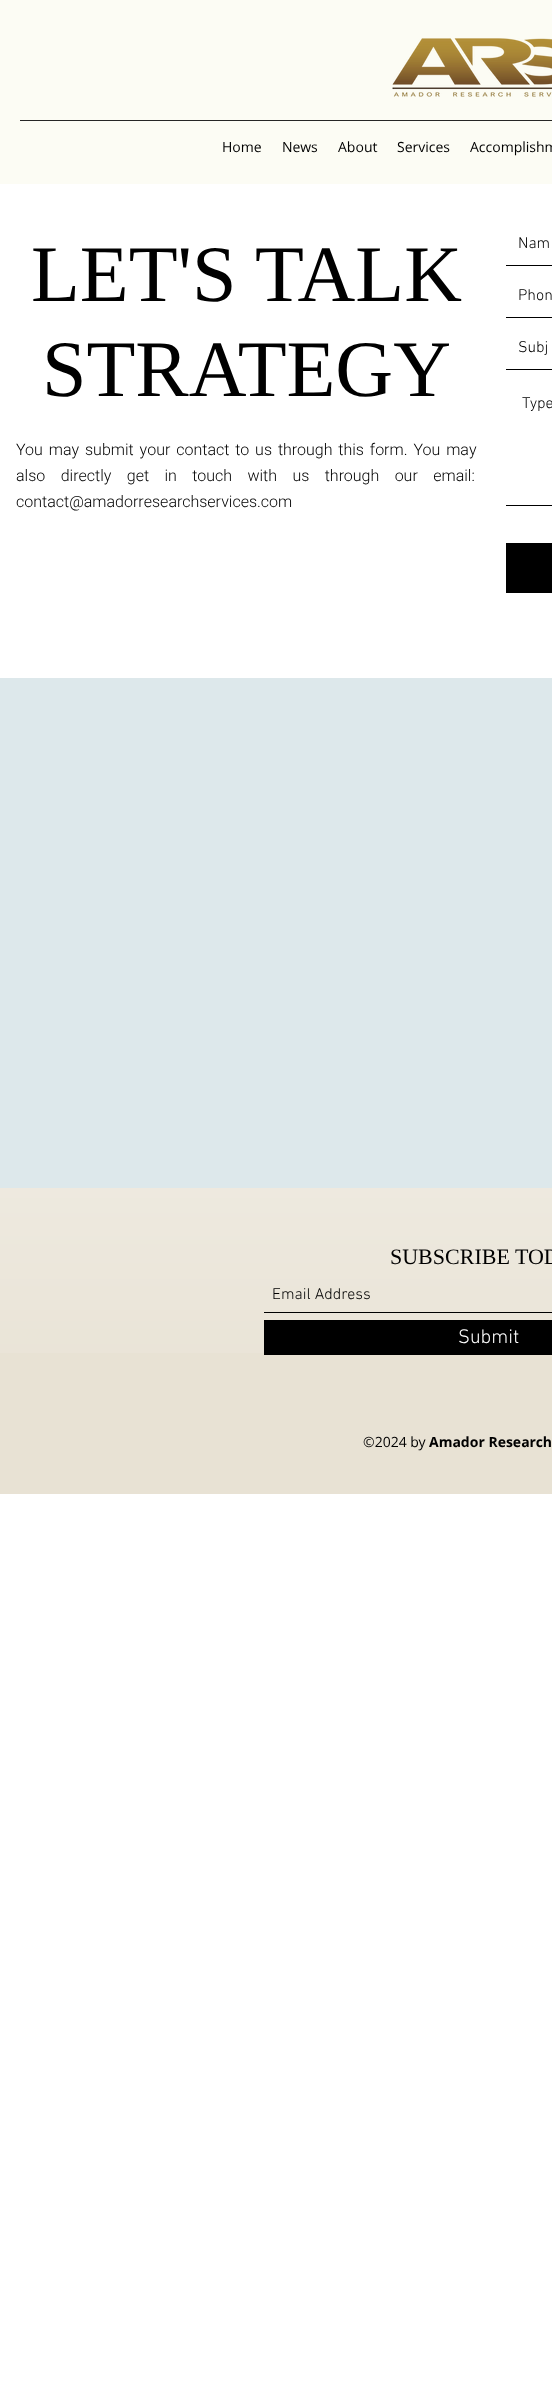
async function draw(canvas) {
  canvas.width = 552
  canvas.height = 2391
  const ctx = canvas.getContext('2d')
  ctx.miterLimit = 4
  ctx.fontKerning = 'normal'
  async function loadImage(src) {
    const img = new Image()
    img.src = src
    await img.decode()
    return img
  }

  ctx.fillStyle = '#fff'
  ctx.fillRect(0, 0, 552, 2391)
  ctx.fillStyle = '#fcfcf4'
  ctx.fillRect(0, 0, 552, 184)
  ctx.drawImage(await loadImage('image0.png'), 392, 38, 160, 59)
  ctx.fillStyle = '#262625'
  ctx.fillRect(20, 120, 532, 1)
  ctx.font = '14px Open Sans'
  ctx.fillStyle = '#000'
  ctx.fillText('Home', 222, 152)
  ctx.fillText('News', 282, 152)
  ctx.fillText('About', 338, 152)
  ctx.fillText('Services', 397, 152)
  ctx.fillText('Accomplishm', 470, 152)
  ctx.font = '80px Liberation Serif'
  ctx.fillText('LET\'S TALK', 31, 301)
  ctx.fillText('STRATEGY', 42, 396)
  ctx.wordSpacing = '2px'
  ctx.font = '300 16px Heebo'
  ctx.fillText('You may submit your contact to us through this form. You may', 16, 455)
  ctx.wordSpacing = '11.5px'
  ctx.fillText('also directly get in touch with us through our email:', 16, 481)
  ctx.wordSpacing = '0px'
  ctx.fillText('contact@amadorresearchservices.com', 16, 507)
  ctx.fillRect(506, 265, 46, 1)
  ctx.font = '300 16px "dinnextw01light"'
  ctx.fillText('Nam', 518, 248)
  ctx.fillRect(506, 317, 46, 1)
  ctx.fillText('Phon', 518, 300)
  ctx.fillRect(506, 369, 46, 1)
  ctx.fillText('Subj', 518, 352)
  ctx.fillRect(506, 505, 46, 1)
  ctx.fillText('Type', 522, 408)
  ctx.fillRect(506, 543, 46, 50)
  ctx.fillStyle = '#dde8eb'
  ctx.fillRect(0, 678, 552, 510)
  ctx.fillStyle = '#e8e2d4'
  ctx.fillRect(0, 1188, 552, 306)
  ctx.drawImage(await loadImage('image1.png'), 0, 1188, 552, 165)
  ctx.font = '22px Liberation Serif'
  ctx.fillStyle = '#000'
  ctx.fillText('SUBSCRIBE TOD', 390, 1264)
  ctx.fillRect(264, 1312, 288, 1)
  ctx.font = '300 16px "dinnextw01light"'
  ctx.fillText('Email Address', 272, 1299)
  ctx.fillRect(264, 1320, 288, 35)
  ctx.font = '300 20px "dinnextw01light"'
  ctx.fillStyle = '#fff'
  ctx.fillText('Submit', 458, 1343)
  ctx.font = '14px Open Sans'
  ctx.fillStyle = '#000'
  ctx.fillText('©2024 by', 363, 1447)
  ctx.font = 'bold 14px Open Sans'
  ctx.fillText('Amador Research', 429, 1447)
}

draw(document.querySelector('canvas'))
